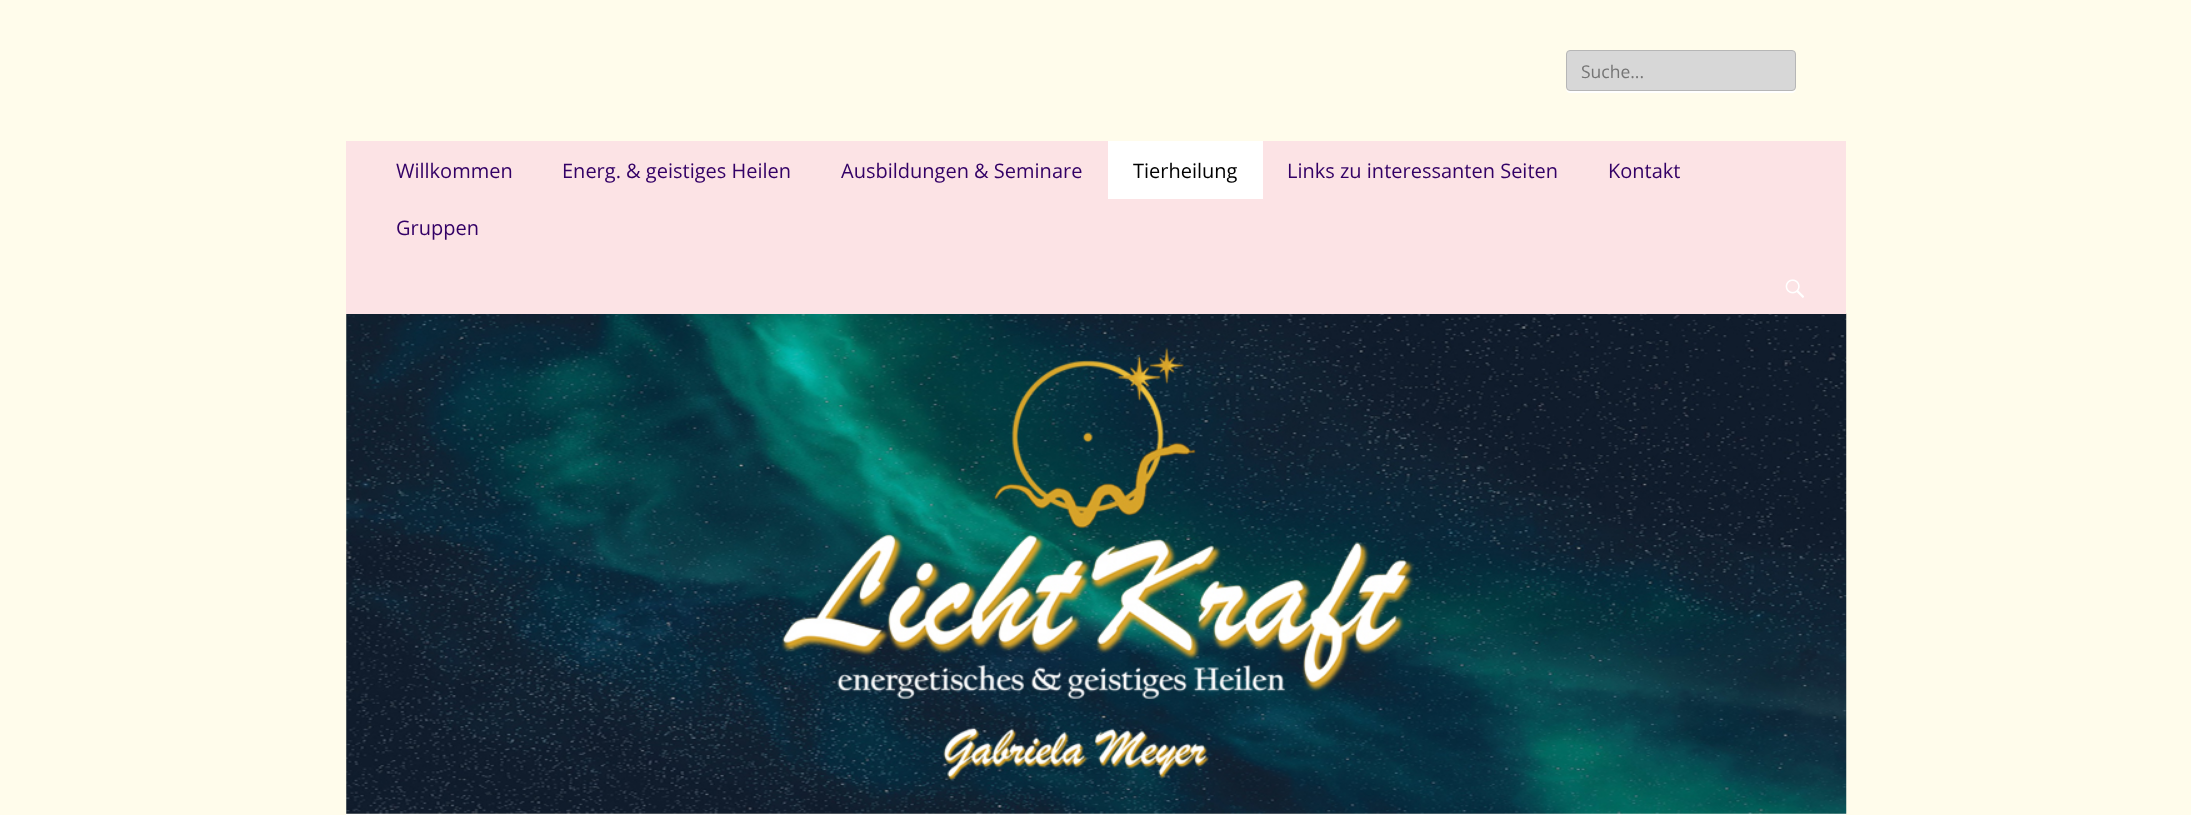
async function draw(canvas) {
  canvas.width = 2191
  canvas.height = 815
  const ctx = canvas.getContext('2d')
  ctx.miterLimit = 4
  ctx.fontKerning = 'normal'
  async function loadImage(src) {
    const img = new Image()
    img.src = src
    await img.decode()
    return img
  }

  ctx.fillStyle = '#fffceb'
  ctx.fillRect(0, 0, 2191, 815)
  ctx.fillStyle = '#fff'
  ctx.beginPath()
  ctx.moveTo(1566, 54)
  ctx.lineTo(1566, 89)
  ctx.bezierCurveTo(1566, 91, 1568, 93, 1570, 93)
  ctx.lineTo(1792, 93)
  ctx.bezierCurveTo(1794, 93, 1796, 91, 1796, 89)
  ctx.bezierCurveTo(1795, 90, 1794, 91, 1792, 91)
  ctx.lineTo(1570, 91)
  ctx.bezierCurveTo(1568, 91, 1566, 90, 1566, 88)
  ctx.closePath()
  ctx.fill()
  ctx.fillStyle = '#d7d7d7'
  ctx.beginPath()
  ctx.roundRect(1566.5, 50.5, 229, 40, 3.5)
  ctx.fill()
  ctx.strokeStyle = '#b6b6b6'
  ctx.stroke()
  ctx.font = '17.5px Open Sans'
  ctx.fillStyle = '#757575'
  ctx.fillText('Suche...', 1581, 78)
  ctx.drawImage(await loadImage('image1.png'), 346, 313, 1501, 501)
  ctx.fillStyle = '#fce3e5'
  ctx.fillRect(346, 141, 1500, 173)
  ctx.font = '20px Open Sans'
  ctx.fillStyle = '#306'
  ctx.fillText('Willkommen', 396, 178)
  ctx.fillText('Energ. & geistiges Heilen', 562, 178)
  ctx.fillText('Ausbildungen & Seminare', 841, 178)
  ctx.fillStyle = '#fff'
  ctx.fillRect(1108, 141, 155, 58)
  ctx.fillStyle = '#000'
  ctx.fillText('Tierheilung', 1133, 178)
  ctx.fillStyle = '#306'
  ctx.fillText('Links zu interessanten Seiten', 1287, 178)
  ctx.fillText('Kontakt', 1608, 178)
  ctx.fillText('Gruppen', 396, 235)
  ctx.drawImage(await loadImage('image0.png'), 1785, 279, 19, 19)
  ctx.fillStyle = '#fff'
  ctx.fillRect(346, 814, 1500, 1)
}

draw(document.querySelector('canvas'))
